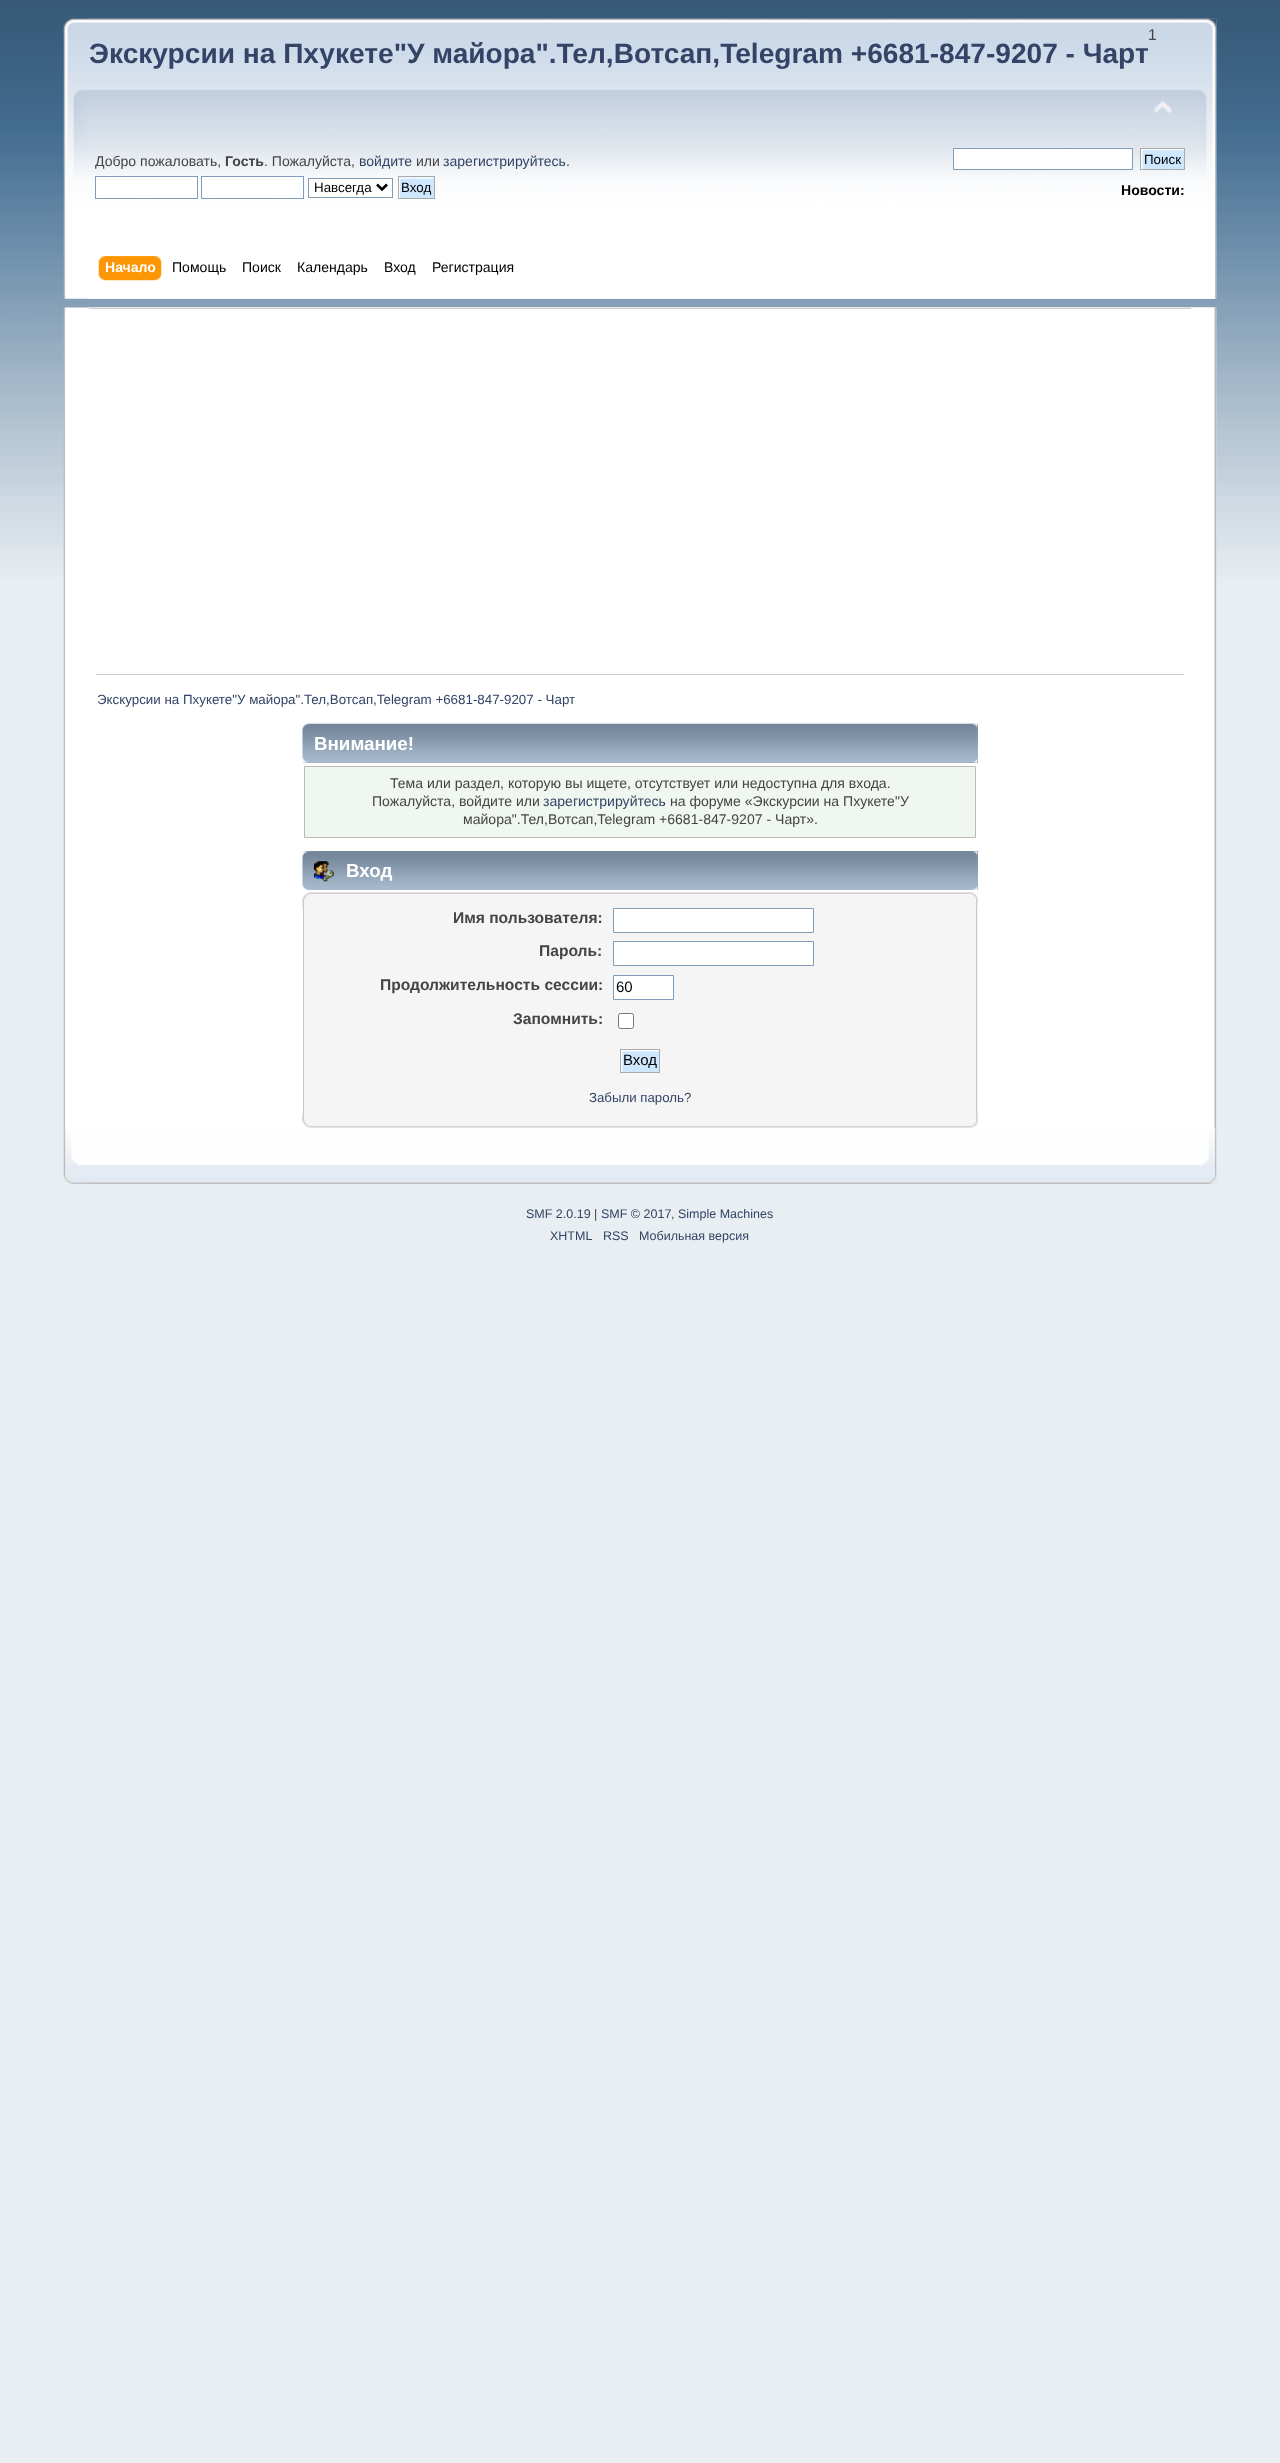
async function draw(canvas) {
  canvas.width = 1280
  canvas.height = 2463
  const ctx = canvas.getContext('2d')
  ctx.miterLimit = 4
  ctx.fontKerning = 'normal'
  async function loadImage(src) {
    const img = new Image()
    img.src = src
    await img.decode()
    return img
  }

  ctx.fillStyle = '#e9eef2'
  ctx.fillRect(0, 0, 1280, 2463)
  ctx.drawImage(await loadImage('image0.png'), 0, 0, 1280, 577)
  ctx.drawImage(await loadImage('image1.png'), 63, 18, 1154, 281)
  ctx.drawImage(await loadImage('image2.png'), 88, 18, 1129, 281)
  ctx.font = '15.6px Liberation Sans'
  ctx.fillStyle = '#444'
  ctx.fillText('1', 1148, 40)
  ctx.font = 'bold 28.1px Liberation Sans'
  ctx.fillStyle = '#346'
  ctx.fillText('Экскурсии на Пхукете"У майора".Тел,Вотсап,Telegram +6681-847-9207 - Чарт', 89, 63)
  ctx.drawImage(await loadImage('image3.png'), 1153, 100, 19, 15)
  ctx.font = '14.05px Liberation Sans'
  ctx.fillStyle = '#444'
  ctx.fillText('Добро пожаловать,', 95, 166)
  ctx.font = 'bold 14.05px Liberation Sans'
  ctx.fillText('Гость', 225, 166)
  ctx.font = '14.05px Liberation Sans'
  ctx.fillText('. Пожалуйста,', 264, 166)
  ctx.fillStyle = '#346'
  ctx.fillText('войдите', 359, 166)
  ctx.fillStyle = '#444'
  ctx.fillText('или', 416, 166)
  ctx.fillStyle = '#346'
  ctx.fillText('зарегистрируйтесь', 443, 166)
  ctx.fillStyle = '#444'
  ctx.fillText('.', 566, 166)
  ctx.fillStyle = '#fff'
  ctx.fillRect(96, 177, 101, 17)
  ctx.strokeStyle = '#7f9db9'
  ctx.strokeRect(95.5, 176.5, 102, 22)
  ctx.fillRect(202, 177, 101, 17)
  ctx.strokeRect(201.5, 176.5, 102, 22)
  ctx.fillRect(309, 179, 83, 15)
  ctx.strokeRect(308.5, 178.5, 84, 19)
  ctx.beginPath()
  ctx.moveTo(377, 184.5)
  ctx.lineTo(382, 189.5)
  ctx.lineTo(387, 184.5)
  ctx.strokeStyle = '#000'
  ctx.lineWidth = 2.5
  ctx.stroke()
  ctx.font = '13.35px Liberation Sans'
  ctx.fillStyle = '#000'
  ctx.fillText('Навсегда', 314, 192)
  ctx.fillStyle = '#cde7ff'
  ctx.fillRect(399, 177, 35, 1)
  ctx.drawImage(await loadImage('image4.png'), 399, 177, 35, 21)
  ctx.strokeStyle = '#aaa'
  ctx.lineWidth = 1
  ctx.strokeRect(398.5, 176.5, 36, 22)
  ctx.fillStyle = '#000'
  ctx.fillText('Вход', 401, 192)
  ctx.fillStyle = '#fff'
  ctx.beginPath()
  ctx.rect(953.5, 148.5, 179, 21)
  ctx.fill()
  ctx.strokeStyle = '#7f9db9'
  ctx.stroke()
  ctx.drawImage(await loadImage('image5.png'), 1141, 149, 43, 20)
  ctx.strokeStyle = '#aaa'
  ctx.strokeRect(1140.5, 148.5, 44, 21)
  ctx.fillStyle = '#000'
  ctx.fillText('Поиск', 1144, 164)
  ctx.font = 'bold 14.05px Liberation Sans'
  ctx.fillText('Новости:', 1121, 195)
  ctx.drawImage(await loadImage('image6.png'), 105, 256, 57, 25)
  ctx.drawImage(await loadImage('image7.png'), 98, 256, 57, 25)
  ctx.fillStyle = '#fff'
  ctx.fillText('Начало', 105, 272)
  ctx.font = '14.05px Liberation Sans'
  ctx.fillStyle = '#000'
  ctx.fillText('Помощь', 172, 272)
  ctx.fillText('Поиск', 242, 272)
  ctx.fillText('Календарь', 297, 272)
  ctx.fillText('Вход', 384, 272)
  ctx.fillText('Регистрация', 432, 272)
  ctx.drawImage(await loadImage('image8.png'), 63, 307, 1154, 822)
  ctx.drawImage(await loadImage('image9.png'), 88, 307, 1129, 822)
  ctx.fillStyle = '#ccc'
  ctx.fillRect(89, 308, 1102, 1)
  ctx.fillRect(96, 674, 1088, 1)
  ctx.font = '13.35px Liberation Sans'
  ctx.fillStyle = '#346'
  ctx.fillText('Экскурсии на Пхукете"У майора".Тел,Вотсап,Telegram +6681-847-9207 - Чарт', 97, 704)
  ctx.fillStyle = '#99abbf'
  ctx.fillRect(303, 724, 675, 39)
  ctx.drawImage(await loadImage('image10.png'), 302, 723, 676, 40)
  ctx.drawImage(await loadImage('image11.png'), 314, 723, 664, 40)
  ctx.font = 'bold 18.75px Liberation Sans'
  ctx.fillStyle = '#fff'
  ctx.fillText('Внимание!', 314, 750)
  ctx.fillStyle = '#f0f6f0'
  ctx.beginPath()
  ctx.rect(304.5, 766.5, 671, 71)
  ctx.fill()
  ctx.strokeStyle = '#bbb'
  ctx.stroke()
  ctx.font = '14.05px Liberation Sans'
  ctx.fillStyle = '#444'
  ctx.fillText('Тема или раздел, которую вы ищете, отсутствует или недоступна для входа.', 390, 788)
  ctx.fillText('Пожалуйста, войдите или', 372, 806)
  ctx.fillStyle = '#346'
  ctx.fillText('зарегистрируйтесь', 543, 806)
  ctx.fillStyle = '#444'
  ctx.fillText('на форуме «Экскурсии на Пхукете"У', 670, 806)
  ctx.fillText('майора".Тел,Вотсап,Telegram +6681-847-9207 - Чарт».', 463, 824)
  ctx.fillStyle = '#99abbf'
  ctx.fillRect(303, 851, 675, 39)
  ctx.drawImage(await loadImage('image12.png'), 302, 851, 676, 39)
  ctx.drawImage(await loadImage('image13.png'), 314, 851, 664, 39)
  ctx.drawImage(await loadImage('image14.png'), 313, 861, 21, 21)
  ctx.font = 'bold 18.75px Liberation Sans'
  ctx.fillStyle = '#fff'
  ctx.fillText('Вход', 346, 877)
  ctx.drawImage(await loadImage('image15.png'), 302, 892, 676, 15)
  ctx.drawImage(await loadImage('image16.png'), 970, 892, 8, 14)
  ctx.fillStyle = '#f5f5f5'
  ctx.fillRect(304, 906, 674, 208)
  ctx.fillStyle = '#c5c5c5'
  ctx.fillRect(976, 906, 1, 208)
  ctx.fillRect(303, 906, 1, 208)
  ctx.font = 'bold 15.6px Liberation Sans'
  ctx.fillStyle = '#444'
  ctx.fillText('Имя пользователя:', 453, 923)
  ctx.fillStyle = '#fff'
  ctx.beginPath()
  ctx.rect(613.5, 908.5, 200, 24)
  ctx.fill()
  ctx.strokeStyle = '#7f9db9'
  ctx.stroke()
  ctx.fillStyle = '#444'
  ctx.fillText('Пароль:', 539, 956)
  ctx.fillStyle = '#fff'
  ctx.beginPath()
  ctx.rect(613.5, 941.5, 200, 24)
  ctx.fill()
  ctx.stroke()
  ctx.fillStyle = '#444'
  ctx.fillText('Продолжительность сессии:', 380, 990)
  ctx.fillStyle = '#fff'
  ctx.beginPath()
  ctx.rect(613.5, 975.5, 60, 24)
  ctx.fill()
  ctx.stroke()
  ctx.font = '15px Liberation Sans'
  ctx.fillStyle = '#000'
  ctx.fillText('60', 616, 992)
  ctx.font = 'bold 15.6px Liberation Sans'
  ctx.fillStyle = '#444'
  ctx.fillText('Запомнить:', 513, 1024)
  ctx.fillStyle = '#fff'
  ctx.beginPath()
  ctx.roundRect(618.5, 1013.5, 15, 15, 2)
  ctx.fill()
  ctx.strokeStyle = '#767676'
  ctx.stroke()
  ctx.drawImage(await loadImage('image17.png'), 621, 1050, 38, 22)
  ctx.strokeStyle = '#aaa'
  ctx.strokeRect(620.5, 1049.5, 39, 23)
  ctx.font = '15px Liberation Sans'
  ctx.fillStyle = '#000'
  ctx.fillText('Вход', 623, 1065)
  ctx.font = '13.25px Liberation Sans'
  ctx.fillStyle = '#346'
  ctx.fillText('Забыли пароль?', 589, 1102)
  ctx.drawImage(await loadImage('image18.png'), 302, 1113, 676, 15)
  ctx.drawImage(await loadImage('image19.png'), 970, 1113, 8, 15)
  ctx.drawImage(await loadImage('image20.png'), 63, 1128, 1154, 56)
  ctx.drawImage(await loadImage('image21.png'), 89, 1128, 1128, 56)
  ctx.font = '12.5px Liberation Sans'
  ctx.fillText('SMF 2.0.19', 526, 1218)
  ctx.fillStyle = '#444'
  ctx.fillText('|', 594, 1218)
  ctx.fillStyle = '#346'
  ctx.fillText('SMF © 2017', 601, 1218)
  ctx.fillStyle = '#444'
  ctx.fillText(',', 671, 1218)
  ctx.fillStyle = '#346'
  ctx.fillText('Simple Machines', 678, 1218)
  ctx.fillText('XHTML', 550, 1240)
  ctx.fillText('RSS', 603, 1240)
  ctx.fillText('Мобильная версия', 639, 1240)
}

draw(document.querySelector('canvas'))
